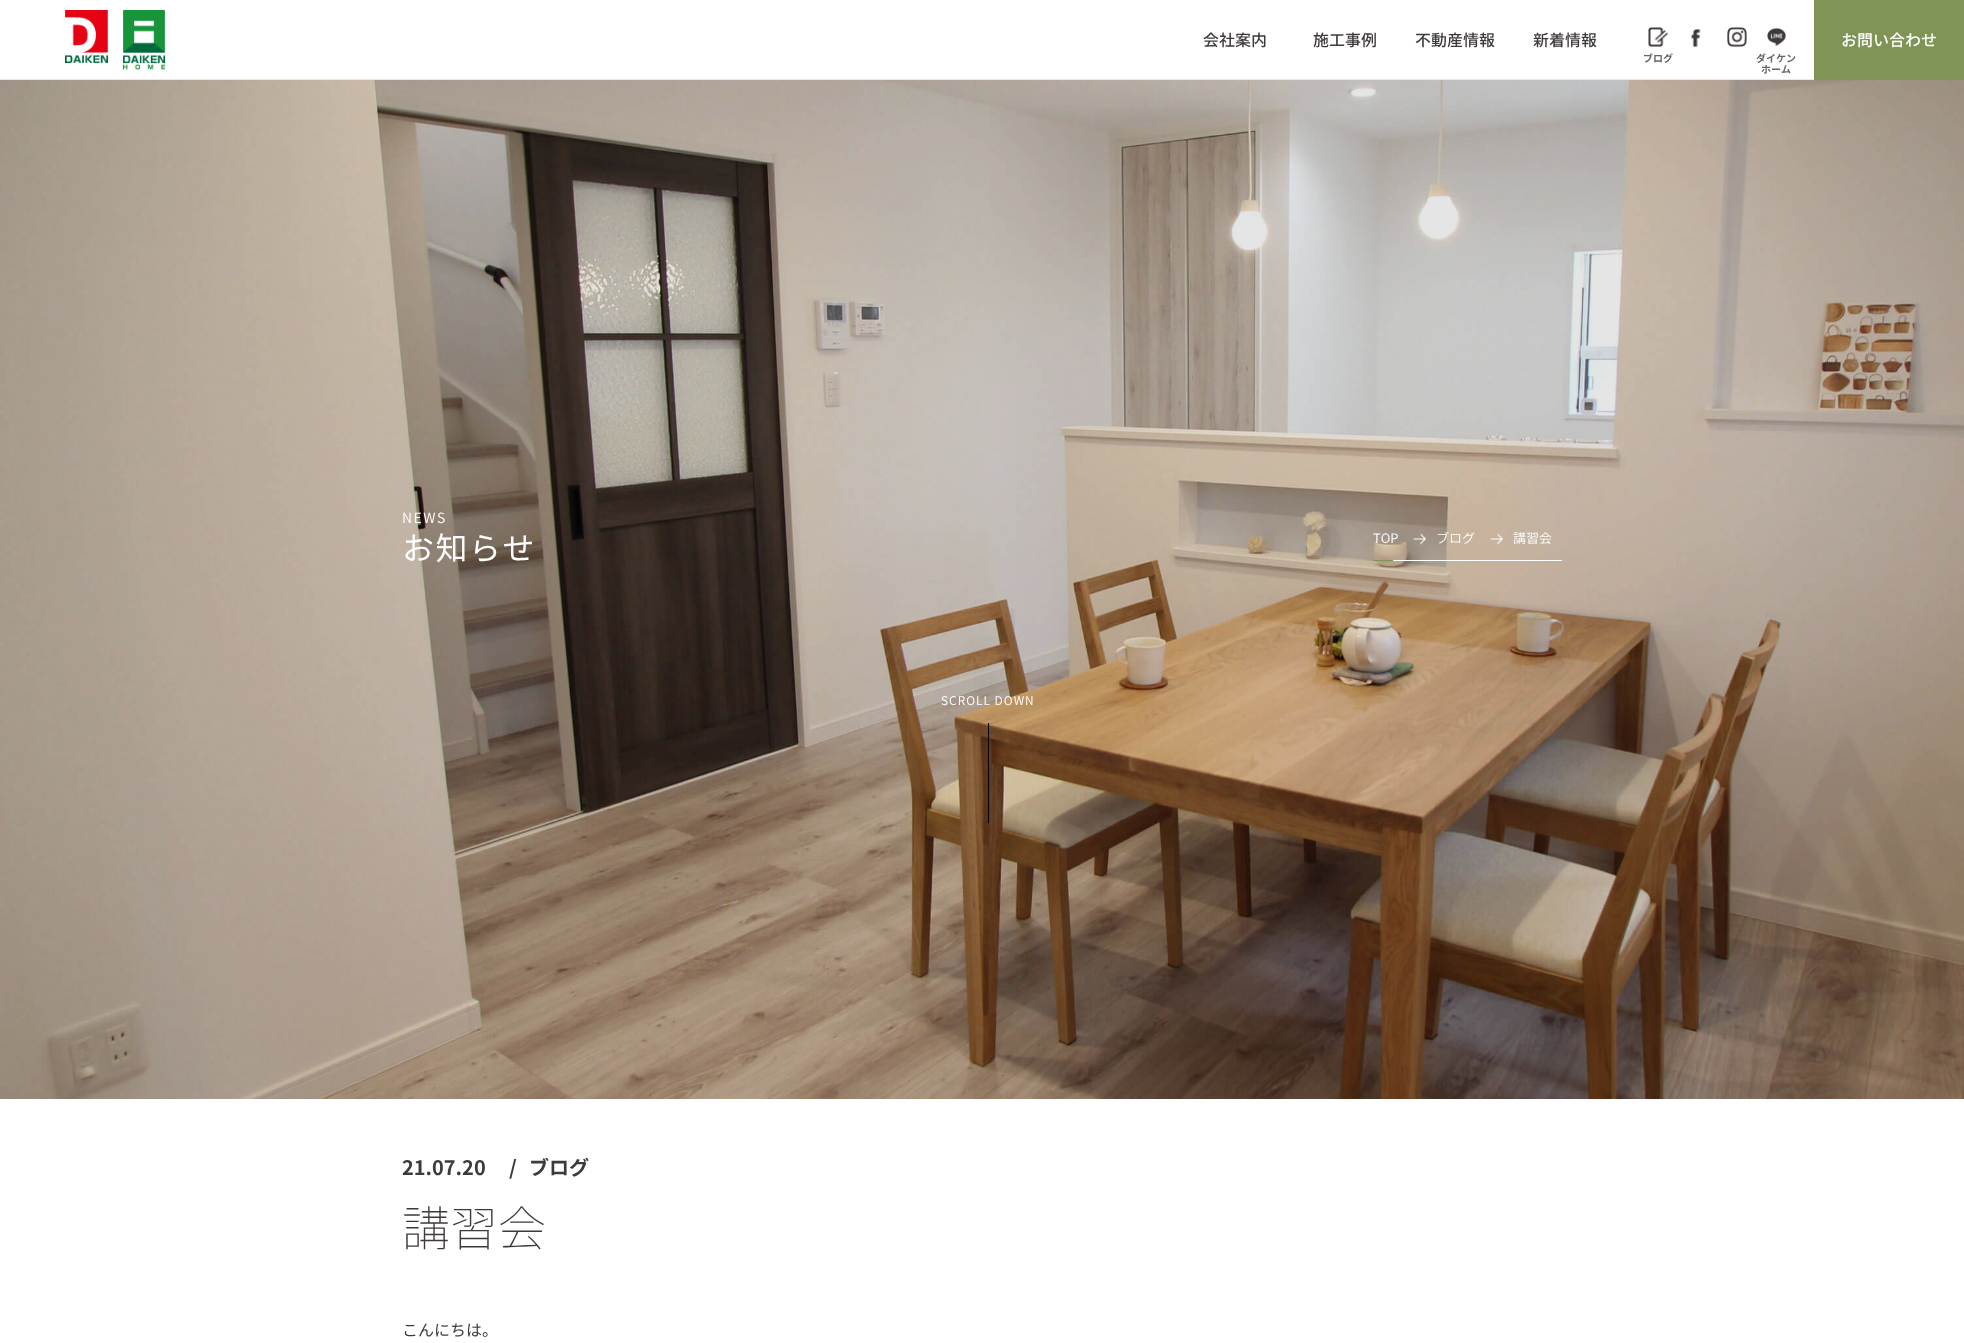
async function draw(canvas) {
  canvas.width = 1964
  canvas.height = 1343
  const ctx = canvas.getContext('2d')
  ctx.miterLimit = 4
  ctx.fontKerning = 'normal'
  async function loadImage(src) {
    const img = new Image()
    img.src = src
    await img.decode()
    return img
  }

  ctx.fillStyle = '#fff'
  ctx.fillRect(0, 0, 1964, 1343)
  ctx.fillStyle = '#e9e9e9'
  ctx.fillRect(0, 79, 1814, 1)
  ctx.drawImage(await loadImage('image0.png'), 65, 10, 43, 53)
  ctx.drawImage(await loadImage('image1.png'), 123, 10, 42, 60)
  ctx.font = '500 16px Noto Sans CJK JP'
  ctx.fillStyle = '#3e3a39'
  ctx.fillText('会社案内', 1203, 46)
  ctx.fillText('施工事例', 1313, 46)
  ctx.fillText('不動産情報', 1415, 46)
  ctx.fillText('新着情報', 1533, 46)
  ctx.fillStyle = '#809456'
  ctx.fillRect(1814, 0, 150, 80)
  ctx.fillStyle = '#fff'
  ctx.fillText('お問い合わせ', 1841, 46)
  ctx.drawImage(await loadImage('image2.png'), 1690, 28, 11, 19)
  ctx.drawImage(await loadImage('image3.png'), 1727, 27, 20, 20)
  ctx.drawImage(await loadImage('image4.png'), 1648, 27, 20, 20)
  ctx.font = 'bold 10px Noto Sans CJK JP'
  ctx.fillStyle = '#666'
  ctx.fillText('ブログ', 1643, 62)
  ctx.drawImage(await loadImage('image5.png'), 1767, 28, 19, 18)
  ctx.fillText('ダイケン', 1756, 62)
  ctx.fillText('ホーム', 1761, 73)
  ctx.drawImage(await loadImage('image6.png'), 0, 80, 1964, 1019)
  ctx.letterSpacing = '1.5px'
  ctx.font = '300 14px Noto Sans CJK JP'
  ctx.fillStyle = '#fff'
  ctx.fillText('NEWS', 402, 523)
  ctx.font = '32px Noto Sans CJK JP'
  ctx.fillText('お知らせ', 402, 560)
  ctx.fillRect(1393, 560, 169, 1)
  ctx.letterSpacing = '0px'
  ctx.font = '300 13px Noto Sans CJK JP'
  ctx.fillText('TOP', 1373, 543)
  ctx.drawImage(await loadImage('image7.png'), 1413, 533, 13, 12)
  ctx.fillText('ブログ', 1436, 543)
  ctx.drawImage(await loadImage('image8.png'), 1490, 533, 13, 12)
  ctx.fillText('講習会', 1513, 543)
  ctx.fillStyle = '#809456'
  ctx.fillRect(1373, 560, 20, 1)
  ctx.letterSpacing = '1px'
  ctx.font = '300 12px Noto Sans CJK JP'
  ctx.fillStyle = '#fff'
  ctx.fillText('SCROLL DOWN', 941, 705)
  ctx.fillStyle = '#000'
  ctx.fillRect(988, 723, 1, 100)
  ctx.letterSpacing = '0px'
  ctx.font = 'bold 20px Noto Sans CJK JP'
  ctx.fillStyle = '#3e3a39'
  ctx.fillText('21.07.20', 402, 1175)
  ctx.fillText('/', 509, 1175)
  ctx.fillText('ブログ', 529, 1175)
  ctx.font = '100 48px Noto Sans CJK JP'
  ctx.fillText('講習会', 402, 1246)
  ctx.font = '16px Noto Sans CJK JP'
  ctx.fillText('こんにちは。', 402, 1336)
}

draw(document.querySelector('canvas'))
